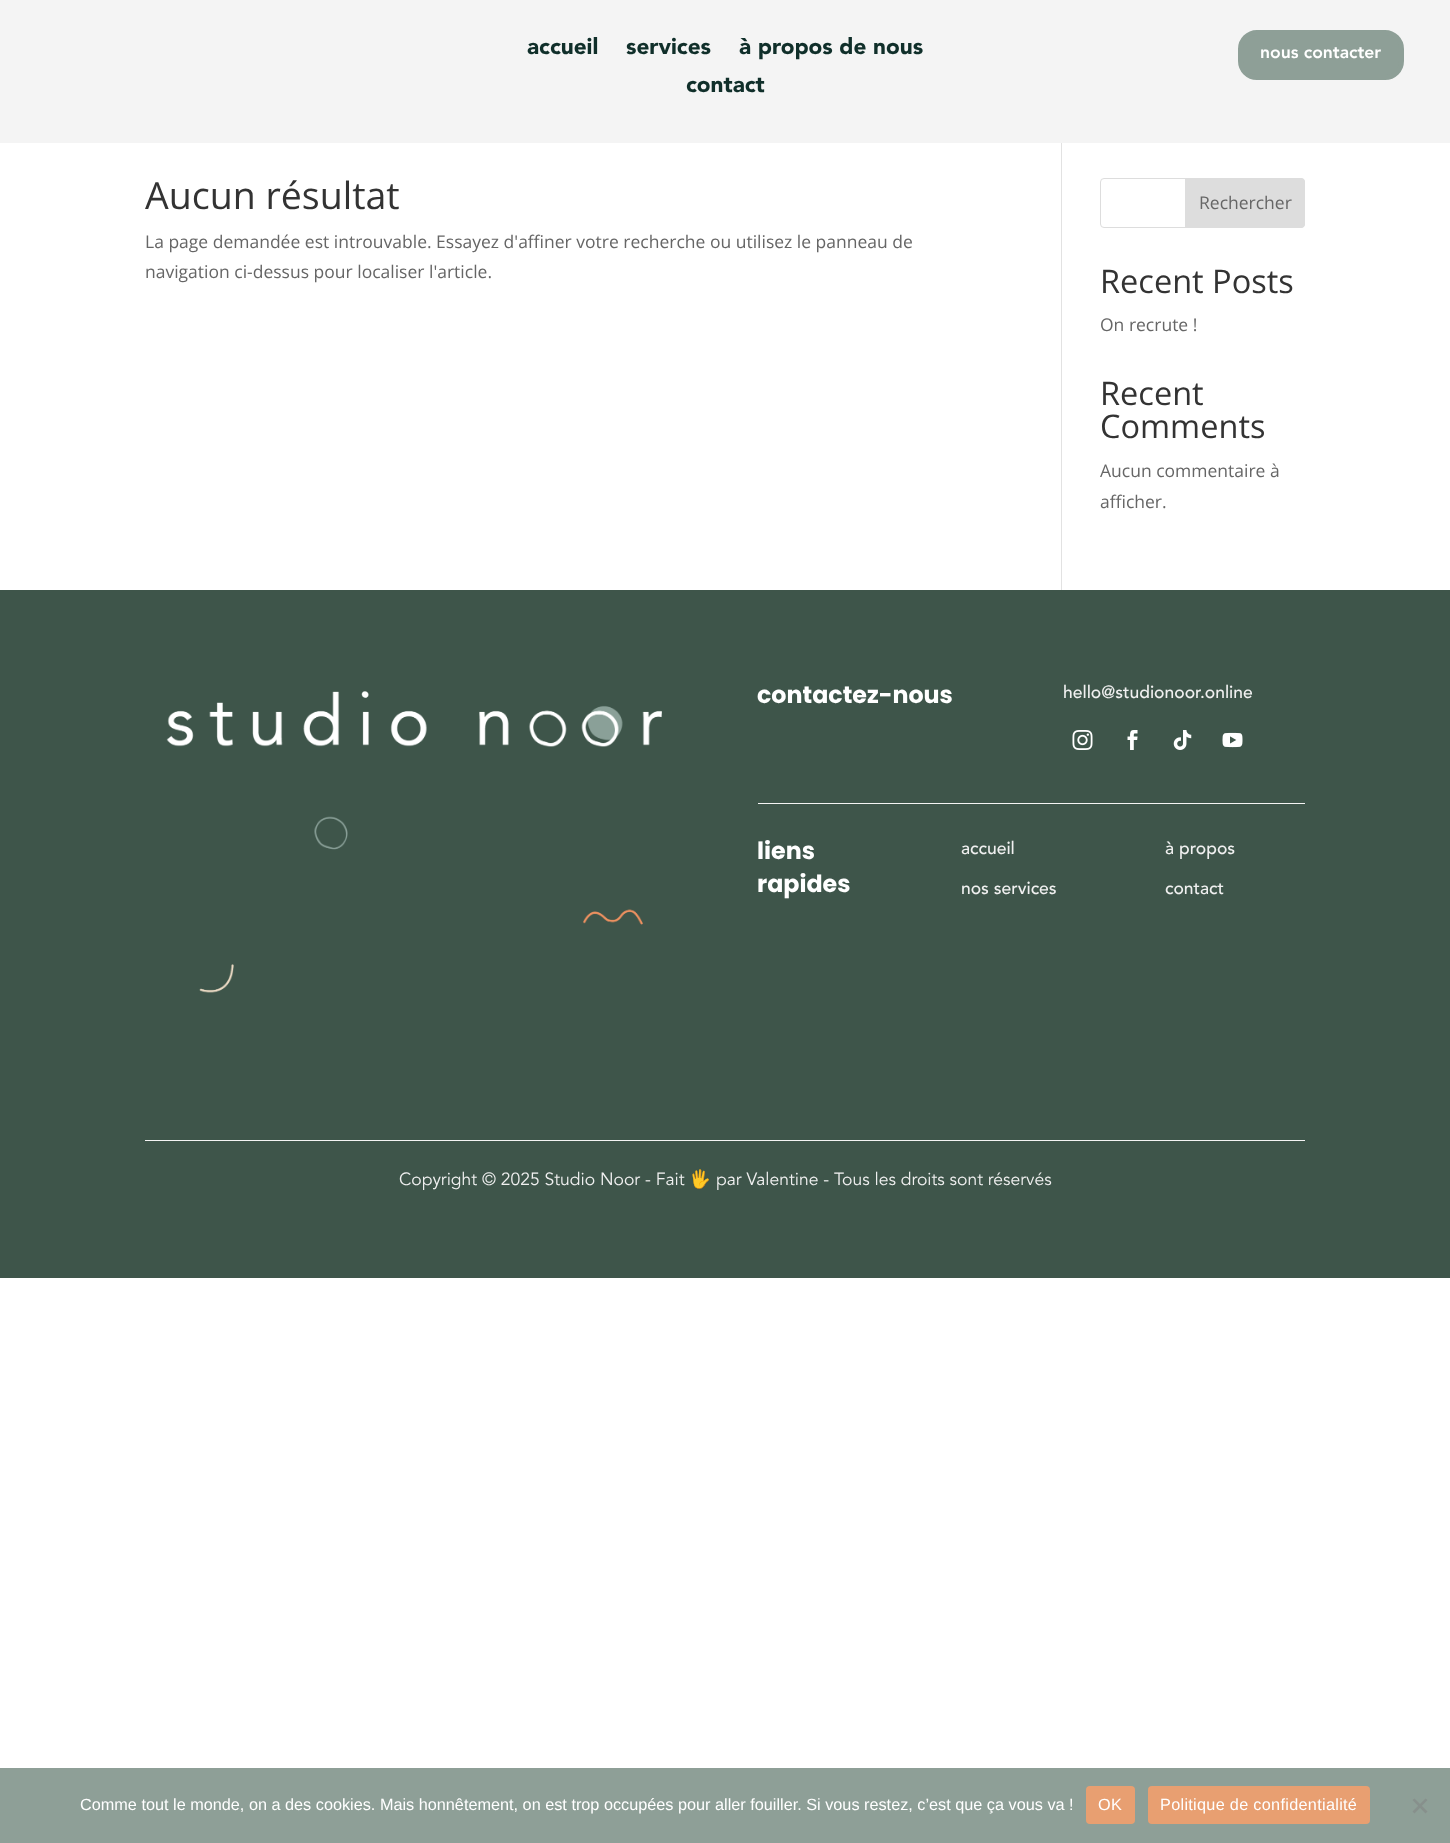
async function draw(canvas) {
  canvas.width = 1450
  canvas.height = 1843
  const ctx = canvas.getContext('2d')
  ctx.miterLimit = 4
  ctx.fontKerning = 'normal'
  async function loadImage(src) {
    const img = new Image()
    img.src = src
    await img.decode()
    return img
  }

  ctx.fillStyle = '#fff'
  ctx.fillRect(0, 0, 1450, 1843)
  ctx.fillStyle = '#f4f4f4'
  ctx.fillRect(0, 0, 1450, 143)
  ctx.font = '900 22.5px "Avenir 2"'
  ctx.fillStyle = '#102f2a'
  ctx.fillText('accueil', 527, 54)
  ctx.fillText('services', 626, 54)
  ctx.fillText('à propos de nous', 739, 54)
  ctx.fillText('contact', 686, 92)
  ctx.fillStyle = '#8e9f97'
  ctx.beginPath()
  ctx.roundRect(1240.5, 32.5, 161, 45, 16.5)
  ctx.fill()
  ctx.strokeStyle = '#8e9f97'
  ctx.lineWidth = 5
  ctx.stroke()
  ctx.font = '900 17.5px Avenir'
  ctx.fillStyle = '#fff'
  ctx.fillText('nous contacter', 1260, 58)
  ctx.fillStyle = '#e2e2e2'
  ctx.fillRect(1061, 143, 1, 447)
  ctx.font = '37.5px Open Sans'
  ctx.fillStyle = '#333'
  ctx.fillText('Aucun résultat', 145, 209)
  ctx.font = '17.5px Open Sans'
  ctx.fillStyle = '#666'
  ctx.fillText('La page demandée est introuvable. Essayez d\'affiner votre recherche ou utilisez le panneau de', 145, 248)
  ctx.fillText('navigation ci-dessus pour localiser l\'article.', 145, 278)
  ctx.beginPath()
  ctx.roundRect(1100.5, 178.5, 204, 49, 3.5)
  ctx.strokeStyle = '#ddd'
  ctx.lineWidth = 1
  ctx.stroke()
  ctx.fillStyle = '#ddd'
  ctx.beginPath()
  ctx.roundRect(1185.5, 178.5, 119, 49, [0, 3.5, 3.5, 0])
  ctx.fill()
  ctx.stroke()
  ctx.fillStyle = '#666'
  ctx.fillText('Rechercher', 1199, 209)
  ctx.font = '32.5px Open Sans'
  ctx.fillStyle = '#333'
  ctx.fillText('Recent Posts', 1100, 293)
  ctx.font = '17.5px Open Sans'
  ctx.fillStyle = '#666'
  ctx.fillText('On recrute !', 1100, 331)
  ctx.font = '32.5px Open Sans'
  ctx.fillStyle = '#333'
  ctx.fillText('Recent', 1100, 405)
  ctx.fillText('Comments', 1100, 438)
  ctx.font = '17.5px Open Sans'
  ctx.fillStyle = '#666'
  ctx.fillText('Aucun commentaire à', 1100, 477)
  ctx.fillText('afficher.', 1100, 508)
  ctx.fillStyle = '#3e554a'
  ctx.fillRect(0, 590, 1450, 688)
  ctx.drawImage(await loadImage('image0.png'), 166, 691, 496, 56)
  ctx.drawImage(await loadImage('image1.png'), 199, 816, 444, 177)
  ctx.font = 'bold 23.75px Poppins'
  ctx.fillStyle = '#fff'
  ctx.fillText('contactez-nous', 757, 703)
  ctx.font = '500 17.5px Avenir'
  ctx.fillStyle = '#f0f0f0'
  ctx.fillText('hello@studionoor.online', 1063, 698)
  ctx.drawImage(await loadImage('image2.png'), 1072, 730, 21, 20)
  ctx.drawImage(await loadImage('image3.png'), 1127, 730, 11, 20)
  ctx.drawImage(await loadImage('image4.png'), 1173, 730, 19, 20)
  ctx.drawImage(await loadImage('image5.png'), 1222, 732, 21, 16)
  ctx.fillStyle = '#f4f4f4'
  ctx.fillRect(758, 803, 547, 1)
  ctx.font = 'bold 23.75px Poppins'
  ctx.fillStyle = '#fff'
  ctx.fillText('liens', 757, 859)
  ctx.fillText('rapides', 757, 892)
  ctx.font = '500 17.5px Avenir'
  ctx.fillStyle = '#f0f0f0'
  ctx.fillText('accueil', 961, 854)
  ctx.fillText('nos services', 961, 894)
  ctx.fillText('à propos', 1165, 854)
  ctx.fillText('contact', 1165, 894)
  ctx.fillStyle = '#f4f4f4'
  ctx.fillRect(145, 1140, 1160, 1)
  ctx.font = '17.5px Avenir'
  ctx.fillStyle = '#f0f0f0'
  ctx.fillText('Copyright © 2025 Studio Noor - Fait', 399, 1185)
  ctx.font = '17.5px Noto Color Emoji'
  ctx.fillText('🖐', 689, 1185)
  ctx.font = '17.5px Avenir'
  ctx.fillText('par Valentine - Tous les droits sont réservés', 716, 1185)
  ctx.fillStyle = '#8e9f97'
  ctx.fillRect(0, 1768, 1450, 75)
  ctx.font = '16.25px Liberation Sans'
  ctx.fillStyle = '#fff'
  ctx.fillText('Comme tout le monde, on a des cookies. Mais honnêtement, on est trop occupées pour aller fouiller. Si vous restez, c’est que ça vous va !', 80, 1810)
  ctx.fillStyle = '#e89f71'
  ctx.beginPath()
  ctx.roundRect(1086, 1786, 49, 38, 4)
  ctx.fill()
  ctx.letterSpacing = '0.3px'
  ctx.fillStyle = '#fff'
  ctx.fillText('OK', 1098, 1810)
  ctx.fillStyle = '#e89f71'
  ctx.beginPath()
  ctx.roundRect(1148, 1786, 222, 38, 4)
  ctx.fill()
  ctx.fillStyle = '#fff'
  ctx.fillText('Politique de confidentialité', 1160, 1810)
  ctx.fillStyle = '#87908c'
  ctx.beginPath()
  ctx.moveTo(1425.5, 1798.5)
  ctx.lineTo(1427.5, 1800)
  ctx.lineTo(1414.5, 1813.5)
  ctx.lineTo(1412.5, 1811.5)
  ctx.closePath()
  ctx.fill()
  ctx.beginPath()
  ctx.moveTo(1412.5, 1800)
  ctx.lineTo(1414.5, 1798.5)
  ctx.lineTo(1427.5, 1811.5)
  ctx.lineTo(1425.5, 1813.5)
  ctx.closePath()
  ctx.fill()
}

draw(document.querySelector('canvas'))
